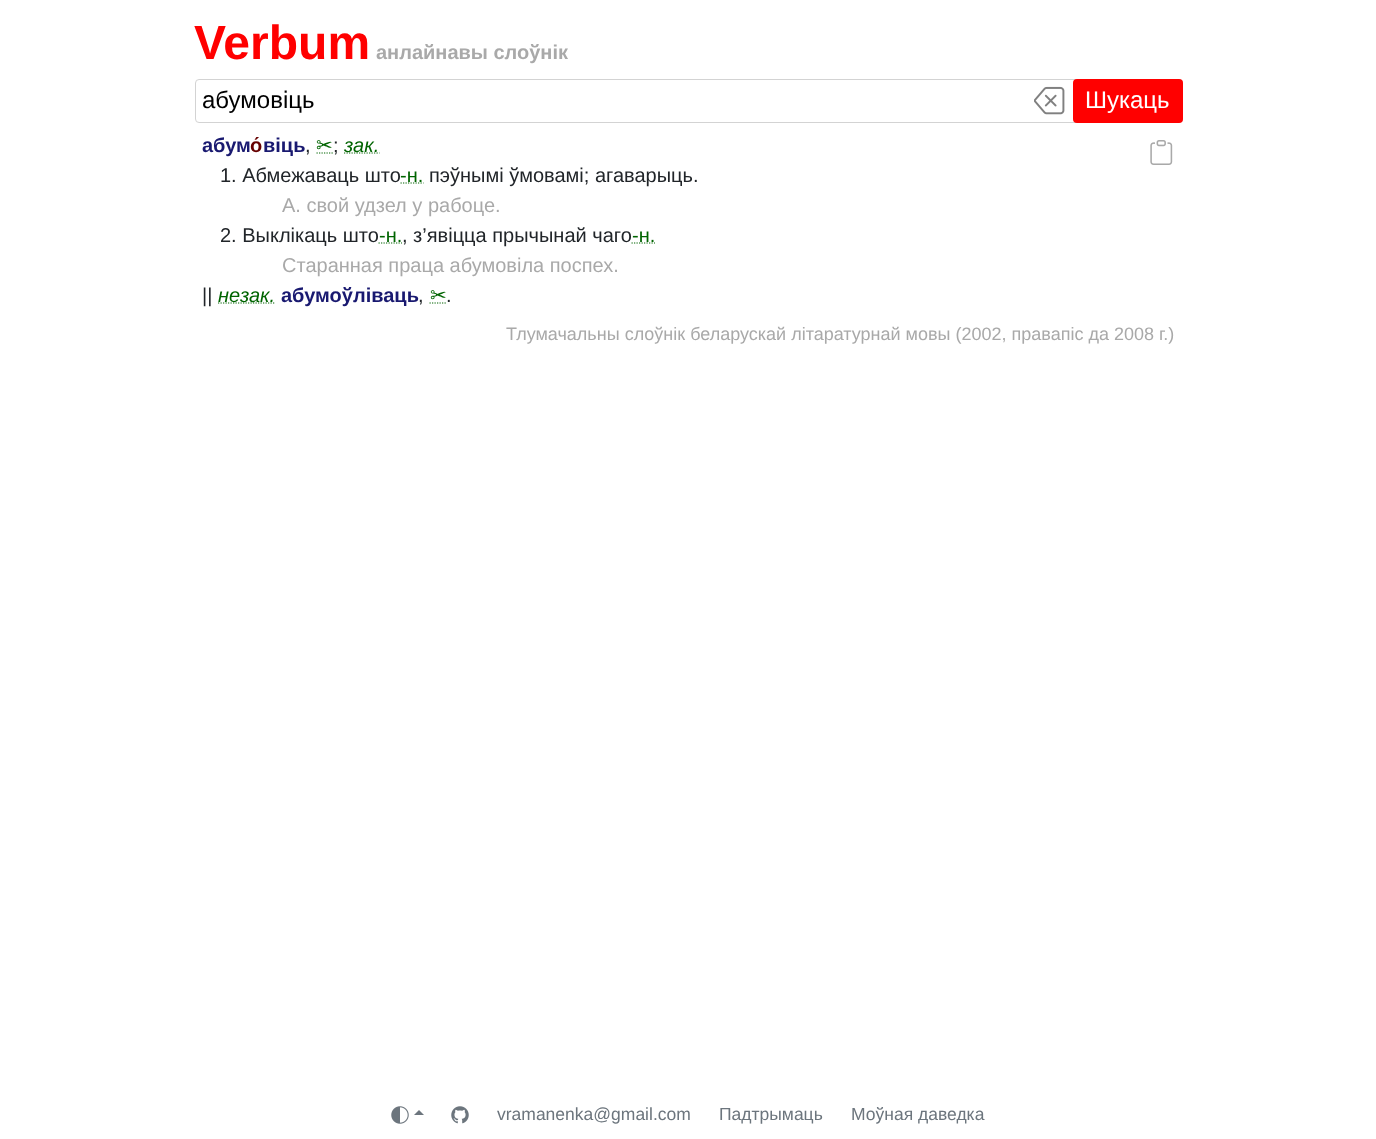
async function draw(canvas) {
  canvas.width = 1376
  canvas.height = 1139
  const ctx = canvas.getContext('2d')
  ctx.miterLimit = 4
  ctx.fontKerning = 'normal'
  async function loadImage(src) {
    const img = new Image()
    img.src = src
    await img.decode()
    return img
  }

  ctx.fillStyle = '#fff'
  ctx.fillRect(0, 0, 1376, 1139)
  ctx.font = 'bold 48px Liberation Sans'
  ctx.fillStyle = '#f00'
  ctx.fillText('Verbum', 194, 59)
  ctx.font = 'bold 20px Liberation Sans'
  ctx.fillStyle = '#a9a9a9'
  ctx.fillText('анлайнавы слоўнік', 376, 59)
  ctx.beginPath()
  ctx.roundRect(195.5, 79.5, 987, 43, 3.5)
  ctx.strokeStyle = '#d3d3d3'
  ctx.stroke()
  ctx.font = '24px Liberation Sans'
  ctx.fillStyle = '#000'
  ctx.fillText('абумовіць', 202, 108)
  ctx.drawImage(await loadImage('image0.png'), 1034, 86, 31, 29)
  ctx.fillStyle = '#f00'
  ctx.beginPath()
  ctx.roundRect(1073, 79, 110, 44, 4)
  ctx.fill()
  ctx.fillStyle = '#fff'
  ctx.fillText('Шукаць', 1085, 108)
  ctx.font = 'bold 20px Liberation Sans'
  ctx.fillStyle = '#191970'
  ctx.fillText('абум', 202, 152)
  ctx.fillStyle = '#600'
  ctx.fillText('о́', 250, 152)
  ctx.fillStyle = '#191970'
  ctx.fillText('віць', 263, 152)
  ctx.font = '20px Liberation Sans'
  ctx.fillStyle = '#212529'
  ctx.fillText(',', 305, 152)
  ctx.font = '20px DejaVu Sans'
  ctx.fillStyle = '#006400'
  ctx.fillText('✂', 316, 152)
  ctx.beginPath()
  ctx.moveTo(316.5, 153)
  ctx.lineTo(333, 153)
  ctx.strokeStyle = '#006400'
  ctx.lineWidth = 1.2
  ctx.setLineDash([1.25, 1.25])
  ctx.stroke()
  ctx.font = '20px Liberation Sans'
  ctx.fillStyle = '#212529'
  ctx.fillText(';', 333, 152)
  ctx.beginPath()
  ctx.moveTo(344, 153)
  ctx.lineTo(379.5, 153)
  ctx.stroke()
  ctx.font = 'italic 20px Liberation Sans'
  ctx.fillStyle = '#006400'
  ctx.fillText('зак.', 344, 152)
  ctx.font = '20px Liberation Sans'
  ctx.fillStyle = '#212529'
  ctx.fillText('1. Абмежаваць што', 220, 182)
  ctx.fillStyle = '#006400'
  ctx.fillText('-н.', 400, 182)
  ctx.beginPath()
  ctx.moveTo(400.5, 183)
  ctx.lineTo(423.5, 183)
  ctx.stroke()
  ctx.fillStyle = '#212529'
  ctx.fillText('пэўнымі ўмовамі; агаварыць.', 429, 182)
  ctx.fillStyle = '#a9a9a9'
  ctx.fillText('А. свой удзел у рабоце.', 282, 212)
  ctx.fillStyle = '#212529'
  ctx.fillText('2. Выклікаць што', 220, 242)
  ctx.fillStyle = '#006400'
  ctx.fillText('-н.', 379, 242)
  ctx.beginPath()
  ctx.moveTo(378.5, 243)
  ctx.lineTo(402, 243)
  ctx.stroke()
  ctx.fillStyle = '#212529'
  ctx.fillText(', з’явіцца прычынай чаго', 402, 242)
  ctx.fillStyle = '#006400'
  ctx.fillText('-н.', 632, 242)
  ctx.beginPath()
  ctx.moveTo(631.5, 243)
  ctx.lineTo(655, 243)
  ctx.stroke()
  ctx.fillStyle = '#a9a9a9'
  ctx.fillText('Старанная праца абумовіла поспех.', 282, 272)
  ctx.fillStyle = '#212529'
  ctx.fillText('||', 202, 302)
  ctx.beginPath()
  ctx.moveTo(218, 303)
  ctx.lineTo(275, 303)
  ctx.stroke()
  ctx.font = 'italic 20px Liberation Sans'
  ctx.fillStyle = '#006400'
  ctx.fillText('незак.', 218, 302)
  ctx.font = 'bold 20px Liberation Sans'
  ctx.fillStyle = '#191970'
  ctx.fillText('абумоўліваць', 281, 302)
  ctx.font = '20px Liberation Sans'
  ctx.fillStyle = '#212529'
  ctx.fillText(',', 418, 302)
  ctx.font = '20px DejaVu Sans'
  ctx.fillStyle = '#006400'
  ctx.fillText('✂', 430, 302)
  ctx.beginPath()
  ctx.moveTo(429.5, 303)
  ctx.lineTo(446.5, 303)
  ctx.stroke()
  ctx.font = '20px Liberation Sans'
  ctx.fillStyle = '#212529'
  ctx.fillText('.', 446, 302)
  ctx.drawImage(await loadImage('image1.png'), 1150, 140, 23, 25)
  ctx.font = '18px Liberation Sans'
  ctx.fillStyle = '#a9a9a9'
  ctx.fillText('Тлумачальны слоўнік беларускай літаратурнай мовы (2002, правапіс да 2008 г.)', 506, 340)
  ctx.drawImage(await loadImage('image2.png'), 391, 1106, 18, 18)
  ctx.fillStyle = '#6c757d'
  ctx.beginPath()
  ctx.moveTo(424, 1115)
  ctx.lineTo(414, 1115)
  ctx.lineTo(419, 1110)
  ctx.closePath()
  ctx.fill()
  ctx.drawImage(await loadImage('image3.png'), 451, 1106, 18, 18)
  ctx.font = '17.5px Liberation Sans'
  ctx.fillText('vramanenka@gmail.com', 497, 1120)
  ctx.fillText('Падтрымаць', 719, 1120)
  ctx.fillText('Моўная даведка', 851, 1120)
}

draw(document.querySelector('canvas'))
